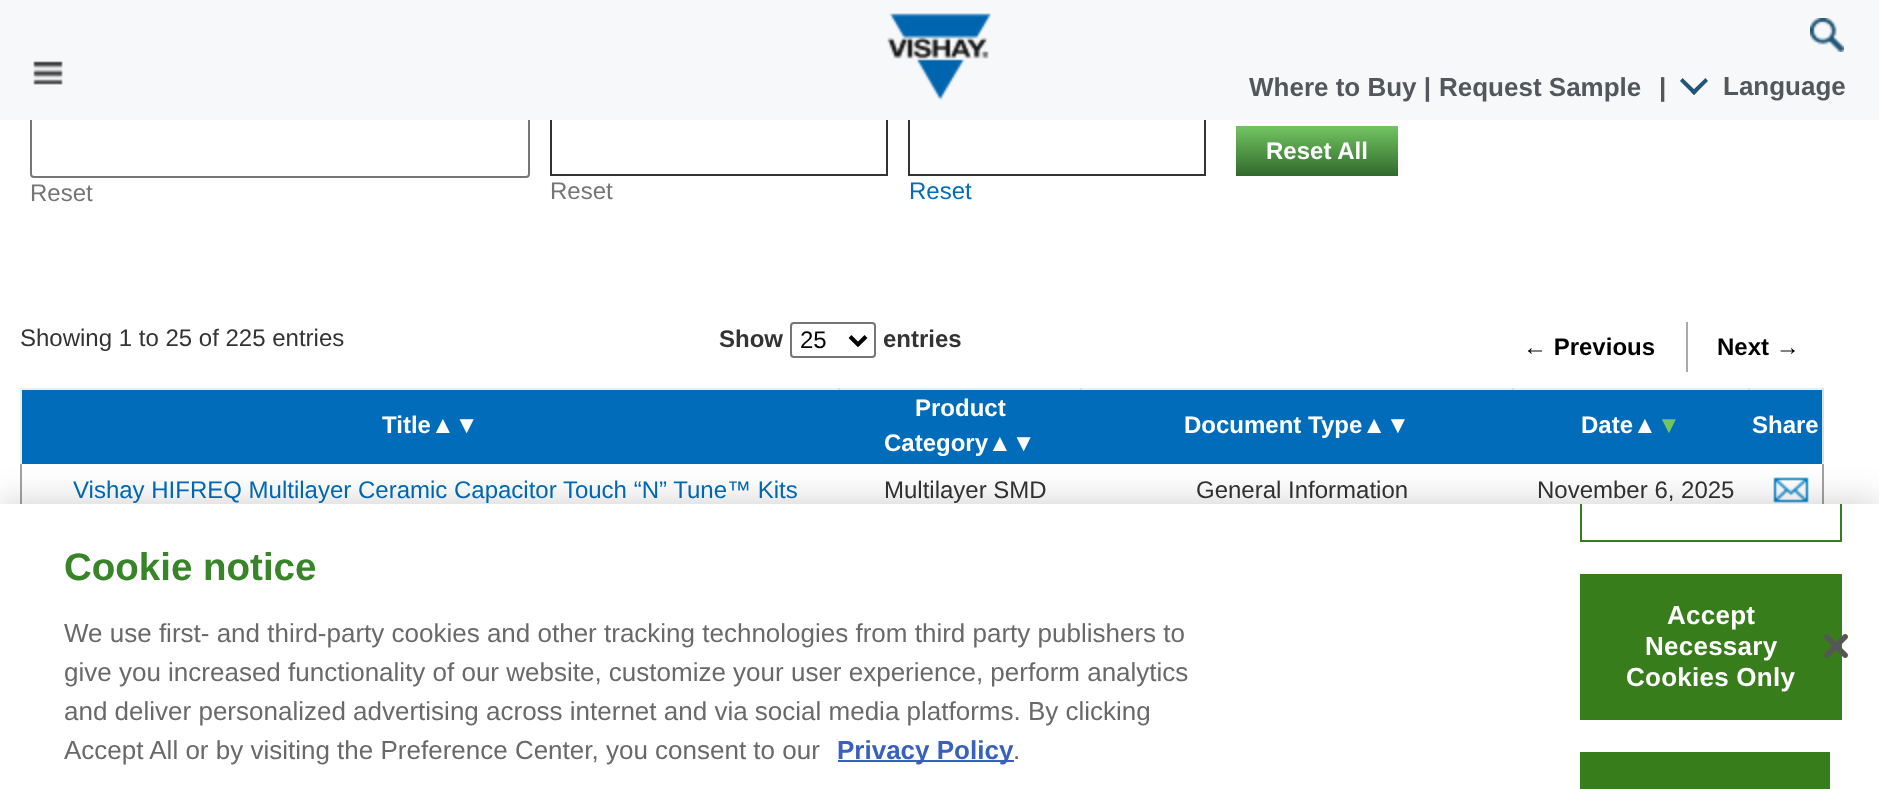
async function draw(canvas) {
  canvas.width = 1879
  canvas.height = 789
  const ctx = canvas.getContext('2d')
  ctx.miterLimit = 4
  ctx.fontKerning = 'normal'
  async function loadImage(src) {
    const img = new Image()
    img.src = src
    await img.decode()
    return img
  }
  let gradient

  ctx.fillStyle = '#fff'
  ctx.fillRect(0, 0, 1879, 789)
  ctx.beginPath()
  ctx.roundRect(31, -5, 498, 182, 3)
  ctx.strokeStyle = '#767676'
  ctx.lineWidth = 2
  ctx.stroke()
  ctx.strokeStyle = '#333'
  ctx.strokeRect(551, -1, 336, 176)
  ctx.strokeRect(909, -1, 296, 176)
  ctx.fillStyle = '#f6f8f9'
  ctx.fillRect(0, 0, 1879, 120)
  ctx.drawImage(await loadImage('image0.png'), 887, 13, 104, 88)
  ctx.drawImage(await loadImage('image1.png'), 1810, 18, 34, 34)
  ctx.drawImage(await loadImage('image2.png'), 33, 61, 30, 24)
  ctx.font = 'bold 26px Liberation Sans'
  ctx.fillStyle = '#53565a'
  ctx.fillText('Where to Buy |', 1249, 96)
  ctx.fillText('Request Sample', 1439, 96)
  ctx.fillText('|', 1659, 96)
  ctx.fillStyle = '#225678'
  ctx.beginPath()
  ctx.moveTo(1705.5, 78)
  ctx.lineTo(1708, 81)
  ctx.lineTo(1694, 95)
  ctx.lineTo(1691, 92)
  ctx.closePath()
  ctx.fill()
  ctx.beginPath()
  ctx.moveTo(1682.5, 78)
  ctx.lineTo(1697, 92)
  ctx.lineTo(1694, 95)
  ctx.lineTo(1680, 81)
  ctx.closePath()
  ctx.fill()
  ctx.fillStyle = '#53565a'
  ctx.fillText('Language', 1723, 95)
  gradient = ctx.createLinearGradient(1317, 126, 1317, 176)
  gradient.addColorStop(0, '#73c561')
  gradient.addColorStop(1, '#30692d')
  ctx.fillStyle = gradient
  ctx.fillRect(1236, 126, 162, 50)
  ctx.font = 'bold 24px Liberation Sans'
  ctx.fillStyle = '#fff'
  ctx.fillText('Reset All', 1266, 159)
  ctx.font = '24px Liberation Sans'
  ctx.fillStyle = '#757575'
  ctx.fillText('Reset', 30, 201)
  ctx.fillText('Reset', 550, 199)
  ctx.fillStyle = '#006cba'
  ctx.fillText('Reset', 909, 199)
  ctx.fillStyle = '#333'
  ctx.fillText('Showing 1 to 25 of 225 entries', 20, 346)
  ctx.font = 'bold 24px Liberation Sans'
  ctx.fillText('Show', 719, 347)
  ctx.beginPath()
  ctx.roundRect(791, 323, 84, 34, 3)
  ctx.strokeStyle = '#767676'
  ctx.stroke()
  ctx.beginPath()
  ctx.moveTo(850, 336.5)
  ctx.lineTo(858, 344.5)
  ctx.lineTo(866, 336.5)
  ctx.strokeStyle = '#000'
  ctx.lineWidth = 4
  ctx.stroke()
  ctx.font = '24px Liberation Sans'
  ctx.fillStyle = '#000'
  ctx.fillText('25', 800, 348)
  ctx.font = 'bold 24px Liberation Sans'
  ctx.fillStyle = '#333'
  ctx.fillText('entries', 883, 347)
  ctx.fillStyle = '#aaa'
  ctx.fillRect(1686, 322, 2, 50)
  ctx.fillStyle = '#000'
  ctx.fillText('← Previous', 1523, 355)
  ctx.fillText('Next →', 1717, 355)
  ctx.fillStyle = '#eee'
  ctx.fillRect(20, 388, 1804, 2)
  ctx.fillRect(20, 388, 2, 74)
  ctx.fillStyle = '#ddd'
  ctx.fillRect(838, 388, 2, 2)
  ctx.fillStyle = '#a2a2a2'
  ctx.fillRect(20, 462, 2, 42)
  ctx.fillStyle = '#eee'
  ctx.fillRect(20, 462, 2, 2)
  ctx.fillStyle = '#006cba'
  ctx.fillRect(22, 390, 1800, 74)
  ctx.fillStyle = '#fff'
  ctx.fillText('Title▲▼', 382, 433)
  ctx.fillStyle = '#ddd'
  ctx.fillRect(1080, 388, 2, 2)
  ctx.fillStyle = '#fff'
  ctx.fillText('Product', 915, 416)
  ctx.fillText('Category▲▼', 884, 451)
  ctx.fillStyle = '#ddd'
  ctx.fillRect(1512, 388, 2, 2)
  ctx.fillStyle = '#fff'
  ctx.fillText('Document Type▲▼', 1184, 433)
  ctx.fillStyle = '#ddd'
  ctx.fillRect(1748, 388, 2, 2)
  ctx.fillStyle = '#fff'
  ctx.fillText('Date▲', 1581, 433)
  ctx.fillStyle = '#73c561'
  ctx.fillText('▼', 1657, 433)
  ctx.fillStyle = '#a2a2a2'
  ctx.fillRect(1822, 462, 2, 42)
  ctx.fillStyle = '#ddd'
  ctx.fillRect(1822, 388, 2, 76)
  ctx.fillStyle = '#eee'
  ctx.fillRect(1822, 462, 2, 2)
  ctx.fillStyle = '#fff'
  ctx.fillText('Share', 1752, 433)
  ctx.font = '24px Liberation Sans'
  ctx.fillStyle = '#006cba'
  ctx.fillText('Vishay HIFREQ Multilayer Ceramic Capacitor Touch “N” Tune™ Kits', 73, 498)
  ctx.fillStyle = '#333'
  ctx.fillText('Multilayer SMD', 884, 498)
  ctx.fillText('General Information', 1196, 498)
  ctx.fillText('November 6, 2025', 1537, 498)
  ctx.drawImage(await loadImage('image3.png'), 1773, 477, 36, 26)
  ctx.fillStyle = '#00000033'
  ctx.filter = 'blur(18px)'
  ctx.beginPath()
  ctx.rect(0, 504, 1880, 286)
  ctx.fill()
  ctx.filter = 'none'
  ctx.fillStyle = '#fff'
  ctx.fillRect(0, 504, 1879, 285)
  ctx.font = 'bold 38.5px Liberation Sans'
  ctx.fillStyle = '#378528'
  ctx.fillText('Cookie notice', 64, 580)
  ctx.font = '26px Liberation Sans'
  ctx.fillStyle = '#696969'
  ctx.fillText('We use first- and third-party cookies and other tracking technologies from third party publishers to', 64, 642)
  ctx.fillText('give you increased functionality of our website, customize your user experience, perform analytics', 64, 681)
  ctx.fillText('and deliver personalized advertising across internet and via social media platforms. By clicking', 64, 720)
  ctx.fillText('Accept All or by visiting the Preference Center, you consent to our', 64, 759)
  ctx.fillStyle = '#3860be'
  ctx.fillRect(838, 760, 176, 2)
  ctx.font = 'bold 26px Liberation Sans'
  ctx.fillText('Privacy Policy', 837, 759)
  ctx.font = '26px Liberation Sans'
  ctx.fillStyle = '#696969'
  ctx.fillText('.', 1013, 759)
  ctx.save()
  ctx.beginPath()
  ctx.rect(0, 504, 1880, 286)
  ctx.clip()
  ctx.strokeStyle = '#387d1c'
  ctx.lineWidth = 2
  ctx.strokeRect(1581, 427, 260, 114)
  ctx.restore()
  ctx.fillStyle = '#387d1c'
  ctx.fillRect(1580, 574, 262, 146)
  ctx.letterSpacing = '0.25px'
  ctx.font = 'bold 26px Liberation Sans'
  ctx.fillStyle = '#fff'
  ctx.fillText('Accept', 1667, 624)
  ctx.fillText('Necessary', 1645, 655)
  ctx.fillText('Cookies Only', 1626, 686)
  ctx.fillStyle = '#387d1c'
  ctx.fillRect(1580, 752, 250, 37)
  ctx.drawImage(await loadImage('image4.png'), 1824, 634, 24, 24)
}

draw(document.querySelector('canvas'))
